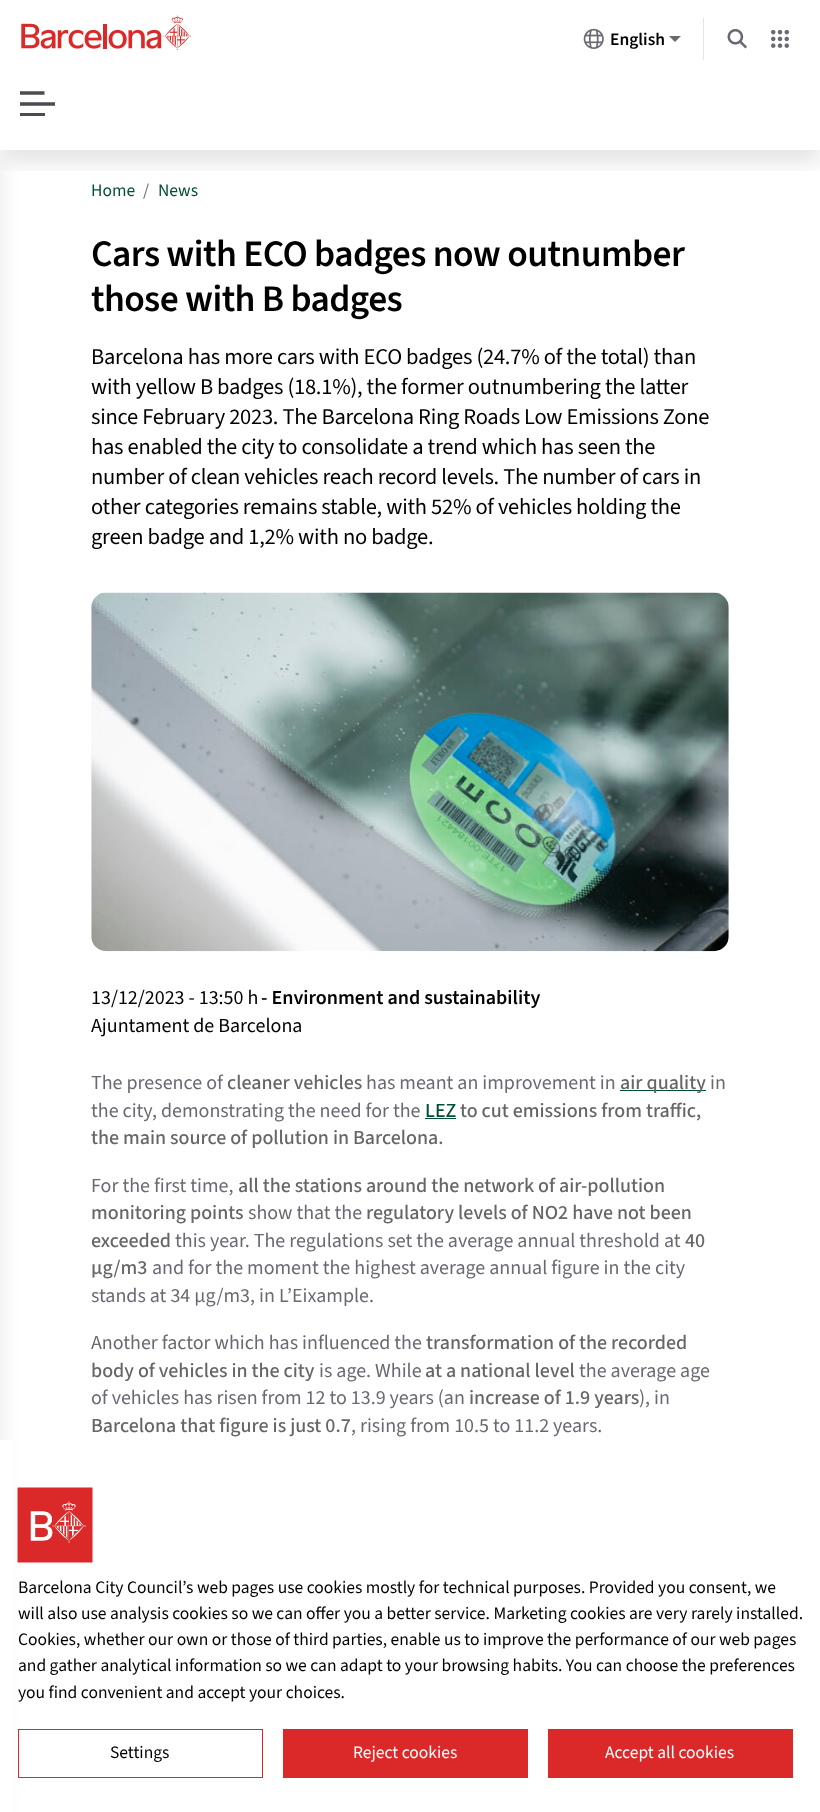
async function draw(canvas) {
  canvas.width = 820
  canvas.height = 1812
  const ctx = canvas.getContext('2d')
  ctx.miterLimit = 4
  ctx.fontKerning = 'normal'
  async function loadImage(src) {
    const img = new Image()
    img.src = src
    await img.decode()
    return img
  }

  ctx.fillStyle = '#fff'
  ctx.fillRect(0, 0, 820, 1812)
  ctx.drawImage(await loadImage('image0.png'), 21, 15, 170, 35)
  ctx.fillStyle = '#e5e5e5'
  ctx.fillRect(703, 18, 1, 42)
  ctx.drawImage(await loadImage('image1.png'), 583, 28, 21, 21)
  ctx.font = '600 17.5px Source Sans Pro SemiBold'
  ctx.fillStyle = '#000'
  ctx.fillText('English', 610, 45)
  ctx.fillStyle = '#696973'
  ctx.beginPath()
  ctx.moveTo(669, 36)
  ctx.lineTo(675, 42)
  ctx.lineTo(681, 36)
  ctx.closePath()
  ctx.fill()
  ctx.drawImage(await loadImage('image2.png'), 727, 29, 20, 20)
  ctx.drawImage(await loadImage('image3.png'), 771, 29, 18, 19)
  ctx.save()
  ctx.beginPath()
  ctx.rect(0, 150, 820, 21)
  ctx.clip()
  ctx.fillStyle = '#0000001a'
  ctx.filter = 'blur(10px)'
  ctx.beginPath()
  ctx.rect(0, 80, 820, 83)
  ctx.fill()
  ctx.filter = 'none'
  ctx.restore()
  ctx.beginPath()
  ctx.moveTo(20, 104)
  ctx.lineTo(55, 104)
  ctx.moveTo(20, 93)
  ctx.lineTo(44.5, 93)
  ctx.strokeStyle = '#4b4b52'
  ctx.lineWidth = 3.3
  ctx.stroke()
  ctx.fillStyle = '#4b4b52'
  ctx.fillRect(20, 113, 25, 3)
  ctx.fillStyle = '#0000001a'
  ctx.filter = 'blur(10px)'
  ctx.beginPath()
  ctx.rect(-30, 163, 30, 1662)
  ctx.fill()
  ctx.filter = 'none'
  ctx.font = '17.5px "Source Sans 3"'
  ctx.fillStyle = '#004f34'
  ctx.fillText('Home', 91, 196)
  ctx.fillStyle = '#696973'
  ctx.fillText('/', 143, 196)
  ctx.fillStyle = '#004f34'
  ctx.fillText('News', 158, 196)
  ctx.letterSpacing = '-0.6px'
  ctx.font = '600 37.5px "Source Sans 3"'
  ctx.fillStyle = '#000'
  ctx.fillText('Cars with ECO badges now outnumber', 91, 266)
  ctx.fillText('those with B badges', 91, 311)
  ctx.letterSpacing = '-0.25px'
  ctx.font = '22.5px "Source Sans 3"'
  ctx.fillText('Barcelona has more cars with ECO badges (24.7% of the total) than', 91, 364)
  ctx.fillText('with yellow B badges (18.1%), the former outnumbering the latter', 91, 394)
  ctx.fillText('since February 2023. The Barcelona Ring Roads Low Emissions Zone', 91, 424)
  ctx.fillText('has enabled the city to consolidate a trend which has seen the', 91, 454)
  ctx.fillText('number of clean vehicles reach record levels. The number of cars in', 91, 484)
  ctx.fillText('other categories remains stable, with 52% of vehicles holding the', 91, 514)
  ctx.fillText('green badge and 1,2% with no badge.', 91, 544)
  ctx.drawImage(await loadImage('image4.png'), 91, 592, 638, 360)
  ctx.letterSpacing = '0px'
  ctx.font = '20px "Source Sans 3"'
  ctx.fillText('13/12/2023 - 13:50 h', 91, 1004)
  ctx.font = '600 20px "Source Sans 3"'
  ctx.fillText('- Environment and sustainability', 261, 1004)
  ctx.font = '20px "Source Sans 3"'
  ctx.fillText('Ajuntament de Barcelona', 91, 1032)
  ctx.fillStyle = '#696973'
  ctx.fillText('The presence of', 91, 1089)
  ctx.font = '500 20px "Source Sans 3"'
  ctx.fillStyle = '#666'
  ctx.fillText('cleaner vehicles', 227, 1089)
  ctx.font = '20px "Source Sans 3"'
  ctx.fillStyle = '#696973'
  ctx.fillText('has meant an improvement in', 366, 1089)
  ctx.fillStyle = '#004f34'
  ctx.fillRect(620, 1090, 86, 1)
  ctx.font = '500 20px "Source Sans 3"'
  ctx.fillStyle = '#666'
  ctx.fillText('air quality', 620, 1089)
  ctx.font = '20px "Source Sans 3"'
  ctx.fillStyle = '#696973'
  ctx.fillText('in', 710, 1089)
  ctx.fillText('the city, demonstrating the need for the', 91, 1117)
  ctx.font = '500 20px "Source Sans 3"'
  ctx.fillStyle = '#004f34'
  ctx.fillText('LEZ', 425, 1117)
  ctx.fillRect(425, 1118, 31, 1)
  ctx.fillStyle = '#666'
  ctx.fillText('to cut emissions from traffic,', 460, 1117)
  ctx.fillText('the main source of pollution in Barcelona.', 91, 1144)
  ctx.font = '20px "Source Sans 3"'
  ctx.fillStyle = '#696973'
  ctx.fillText('For the first time,', 91, 1192)
  ctx.font = '500 20px "Source Sans 3"'
  ctx.fillStyle = '#666'
  ctx.fillText('all the stations around the network of air-pollution', 238, 1192)
  ctx.fillText('monitoring points', 91, 1219)
  ctx.font = '20px "Source Sans 3"'
  ctx.fillStyle = '#696973'
  ctx.fillText('show that the', 248, 1219)
  ctx.font = '500 20px "Source Sans 3"'
  ctx.fillStyle = '#666'
  ctx.fillText('regulatory levels of NO2 have not been', 366, 1219)
  ctx.fillText('exceeded', 91, 1247)
  ctx.font = '20px "Source Sans 3"'
  ctx.fillStyle = '#696973'
  ctx.fillText('this year. The regulations set the average annual threshold at', 175, 1247)
  ctx.font = '500 20px "Source Sans 3"'
  ctx.fillStyle = '#666'
  ctx.fillText('40', 685, 1247)
  ctx.fillText('µg/m3', 91, 1274)
  ctx.font = '20px "Source Sans 3"'
  ctx.fillStyle = '#696973'
  ctx.fillText('and for the moment the highest average annual figure in the city', 152, 1274)
  ctx.fillText('stands at 34 µg/m3, in L’Eixample.', 91, 1302)
  ctx.fillText('Another factor which has influenced the', 91, 1349)
  ctx.font = '500 20px "Source Sans 3"'
  ctx.fillStyle = '#666'
  ctx.fillText('transformation of the recorded', 426, 1349)
  ctx.fillText('body of vehicles in the city', 91, 1377)
  ctx.font = '20px "Source Sans 3"'
  ctx.fillStyle = '#696973'
  ctx.fillText('is age. While', 319, 1377)
  ctx.font = '500 20px "Source Sans 3"'
  ctx.fillStyle = '#666'
  ctx.fillText('at a national level', 425, 1377)
  ctx.font = '20px "Source Sans 3"'
  ctx.fillStyle = '#696973'
  ctx.fillText('the average age', 579, 1377)
  ctx.fillText('of vehicles has risen from 12 to 13.9 years (an', 91, 1404)
  ctx.font = '500 20px "Source Sans 3"'
  ctx.fillStyle = '#666'
  ctx.fillText('increase of 1.9 years', 469, 1404)
  ctx.font = '20px "Source Sans 3"'
  ctx.fillStyle = '#696973'
  ctx.fillText('), in', 639, 1404)
  ctx.font = '500 20px "Source Sans 3"'
  ctx.fillStyle = '#666'
  ctx.fillText('Barcelona that figure is just 0.7', 91, 1432)
  ctx.font = '20px "Source Sans 3"'
  ctx.fillStyle = '#696973'
  ctx.fillText(', rising from 10.5 to 11.2 years.', 351, 1432)
  ctx.fillStyle = '#fff'
  ctx.fillRect(0, 1440, 13, 372)
  ctx.drawImage(await loadImage('image5.png'), 17, 1487, 76, 76)
  ctx.font = '17.5px "Source Sans 3"'
  ctx.fillStyle = '#000'
  ctx.fillText('Barcelona City Council’s web pages use cookies mostly for technical purposes. Provided you consent, we', 18, 1593)
  ctx.fillText('will also use analysis cookies so we can offer you a better service. Marketing cookies are very rarely installed.', 18, 1619)
  ctx.fillText('Cookies, whether our own or those of third parties, enable us to improve the performance of our web pages', 18, 1645)
  ctx.fillText('and gather analytical information so we can adapt to your browsing habits. You can choose the preferences', 18, 1671)
  ctx.fillText('you find convenient and accept your choices.', 18, 1698)
  ctx.strokeStyle = '#db2828'
  ctx.lineWidth = 1
  ctx.strokeRect(18.5, 1729.5, 244, 48)
  ctx.fillText('Settings', 110, 1758)
  ctx.fillStyle = '#db2828'
  ctx.fillRect(283, 1729, 245, 49)
  ctx.fillStyle = '#fff'
  ctx.fillText('Reject cookies', 353, 1758)
  ctx.fillStyle = '#db2828'
  ctx.fillRect(548, 1729, 245, 49)
  ctx.fillStyle = '#fff'
  ctx.fillText('Accept all cookies', 605, 1758)
}

draw(document.querySelector('canvas'))
